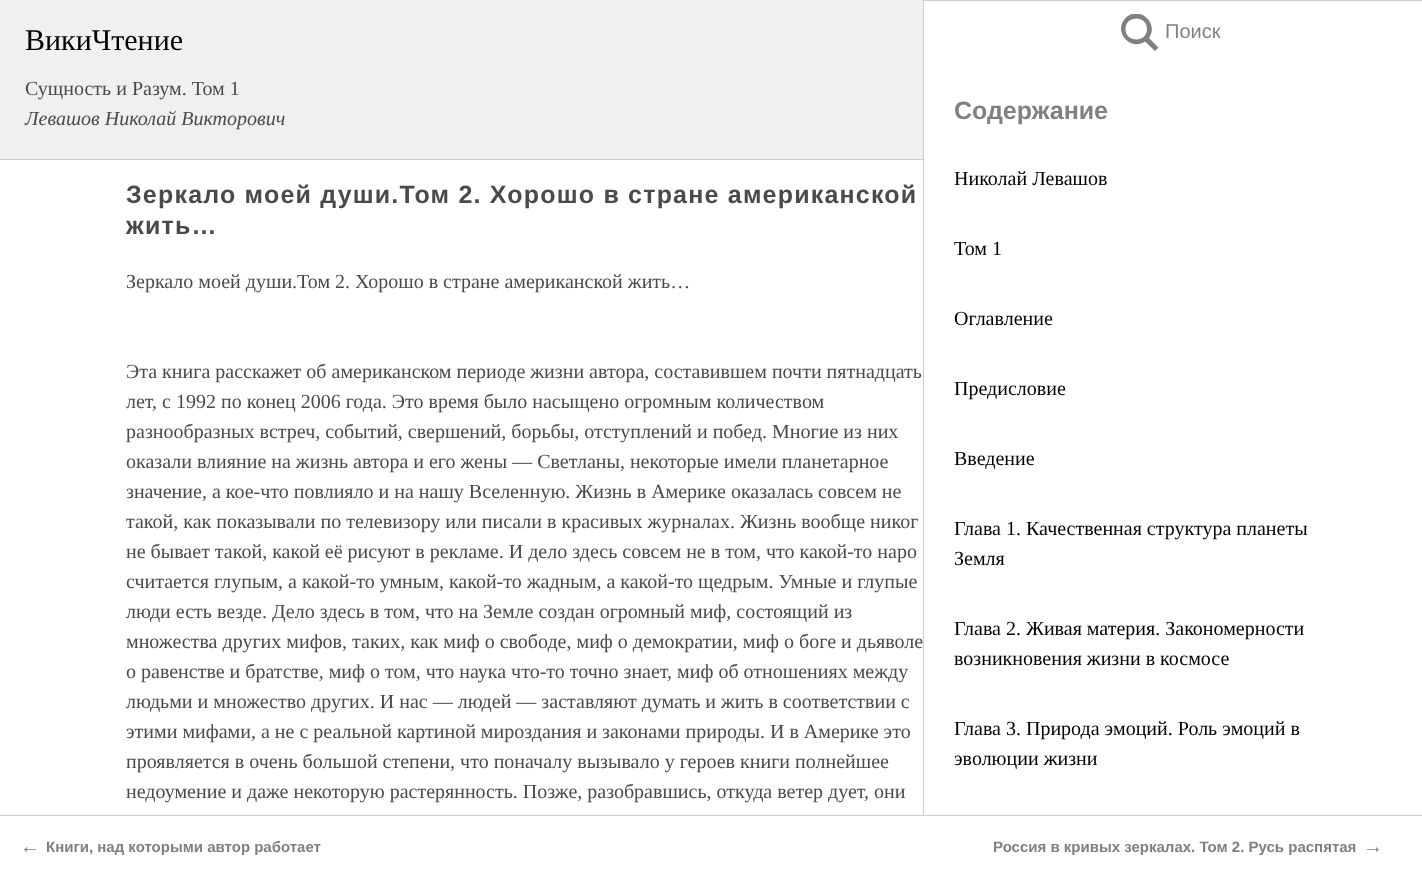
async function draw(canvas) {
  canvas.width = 1422
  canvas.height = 877
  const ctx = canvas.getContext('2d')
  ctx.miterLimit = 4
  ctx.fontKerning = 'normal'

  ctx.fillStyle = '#fff'
  ctx.fillRect(0, 0, 1422, 877)
  ctx.fillStyle = '#f0f0f0'
  ctx.fillRect(0, 0, 923, 159)
  ctx.fillStyle = '#ccc'
  ctx.fillRect(0, 159, 923, 1)
  ctx.font = '30px Liberation Serif'
  ctx.fillStyle = '#000'
  ctx.fillText('ВикиЧтение', 25, 50)
  ctx.font = '20px Liberation Serif'
  ctx.fillStyle = '#4a4a4a'
  ctx.fillText('Сущность и Разум. Том 1', 25, 95)
  ctx.font = 'italic 20px Liberation Serif'
  ctx.fillText('Левашов Николай Викторович', 25, 125)
  ctx.strokeStyle = '#ccc'
  ctx.strokeRect(923.5, 0.5, 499, 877)
  ctx.save()
  ctx.beginPath()
  ctx.rect(1121, 14, 38, 37)
  ctx.clip()
  ctx.fillStyle = '#808080'
  ctx.beginPath()
  ctx.moveTo(1158.5, 47.5)
  ctx.lineTo(1149, 38)
  ctx.bezierCurveTo(1159.5, 23, 1139, 5, 1125.5, 18)
  ctx.bezierCurveTo(1112.5, 31.5, 1130.5, 51.5, 1145, 41.5)
  ctx.lineTo(1155, 51)
  ctx.closePath()
  ctx.moveTo(1125.5, 29)
  ctx.bezierCurveTo(1125.5, 15, 1147, 15, 1147, 29)
  ctx.bezierCurveTo(1147, 43, 1125.5, 43, 1125.5, 29)
  ctx.closePath()
  ctx.fill()
  ctx.restore()
  ctx.font = '20px Liberation Sans'
  ctx.fillStyle = '#808080'
  ctx.fillText('Поиск', 1165, 38)
  ctx.font = 'bold 25px Liberation Sans'
  ctx.fillText('Содержание', 954, 119)
  ctx.font = '20px Liberation Serif'
  ctx.fillStyle = '#000'
  ctx.fillText('Николай Левашов', 954, 185)
  ctx.fillText('Том 1', 954, 255)
  ctx.fillText('Оглавление', 954, 325)
  ctx.fillText('Предисловие', 954, 395)
  ctx.fillText('Введение', 954, 465)
  ctx.fillText('Глава 1. Качественная структура планеты', 954, 535)
  ctx.fillText('Земля', 954, 565)
  ctx.fillText('Глава 2. Живая материя. Закономерности', 954, 635)
  ctx.fillText('возникновения жизни в космосе', 954, 665)
  ctx.fillText('Глава 3. Природа эмоций. Роль эмоций в', 954, 735)
  ctx.fillText('эволюции жизни', 954, 765)
  ctx.letterSpacing = '1.2px'
  ctx.font = 'bold 25px Liberation Sans'
  ctx.fillStyle = '#4a4a4a'
  ctx.fillText('Зеркало моей души.Том 2. Хорошо в стране американской', 126, 203)
  ctx.fillText('жить…', 126, 234)
  ctx.letterSpacing = '0px'
  ctx.font = '20px Liberation Serif'
  ctx.fillText('Зеркало моей души.Том 2. Хорошо в стране американской жить…', 126, 288)
  ctx.fillText('Эта книга расскажет об американском периоде жизни автора, составившем почти пятнадцать', 126, 378)
  ctx.fillText('лет, с 1992 по конец 2006 года. Это время было насыщено огромным количеством', 126, 408)
  ctx.fillText('разнообразных встреч, событий, свершений, борьбы, отступлений и побед. Многие из них', 126, 438)
  ctx.fillText('оказали влияние на жизнь автора и его жены — Светланы, некоторые имели планетарное', 126, 468)
  ctx.fillText('значение, а кое-что повлияло и на нашу Вселенную. Жизнь в Америке оказалась совсем не', 126, 498)
  ctx.fillText('такой, как показывали по телевизору или писали в красивых журналах. Жизнь вообще никог', 126, 528)
  ctx.fillText('не бывает такой, какой её рисуют в рекламе. И дело здесь совсем не в том, что какой-то наро', 126, 558)
  ctx.fillText('считается глупым, а какой-то умным, какой-то жадным, а какой-то щедрым. Умные и глупые', 126, 588)
  ctx.fillText('люди есть везде. Дело здесь в том, что на Земле создан огромный миф, состоящий из', 126, 618)
  ctx.fillText('множества других мифов, таких, как миф о свободе, миф о демократии, миф о боге и дьяволе', 126, 648)
  ctx.fillText('о равенстве и братстве, миф о том, что наука что-то точно знает, миф об отношениях между', 126, 678)
  ctx.fillText('людьми и множество других. И нас — людей — заставляют думать и жить в соответствии с', 126, 708)
  ctx.fillText('этими мифами, а не с реальной картиной мироздания и законами природы. И в Америке это', 126, 738)
  ctx.fillText('проявляется в очень большой степени, что поначалу вызывало у героев книги полнейшее', 126, 768)
  ctx.fillText('недоумение и даже некоторую растерянность. Позже, разобравшись, откуда ветер дует, они', 126, 798)
  ctx.fillStyle = '#fff'
  ctx.fillRect(923, 816, 1, 61)
  ctx.fillStyle = '#ccc'
  ctx.fillRect(0, 815, 1422, 1)
  ctx.font = 'bold 20px Liberation Sans'
  ctx.fillStyle = '#808080'
  ctx.fillText('←', 20, 853)
  ctx.font = 'bold 15px Liberation Sans'
  ctx.fillText('Книги, над которыми автор работает', 46, 852)
  ctx.fillText('Россия в кривых зеркалах. Том 2. Русь распятая', 993, 852)
  ctx.font = 'bold 20px Liberation Sans'
  ctx.fillText('→', 1363, 853)
}

draw(document.querySelector('canvas'))
